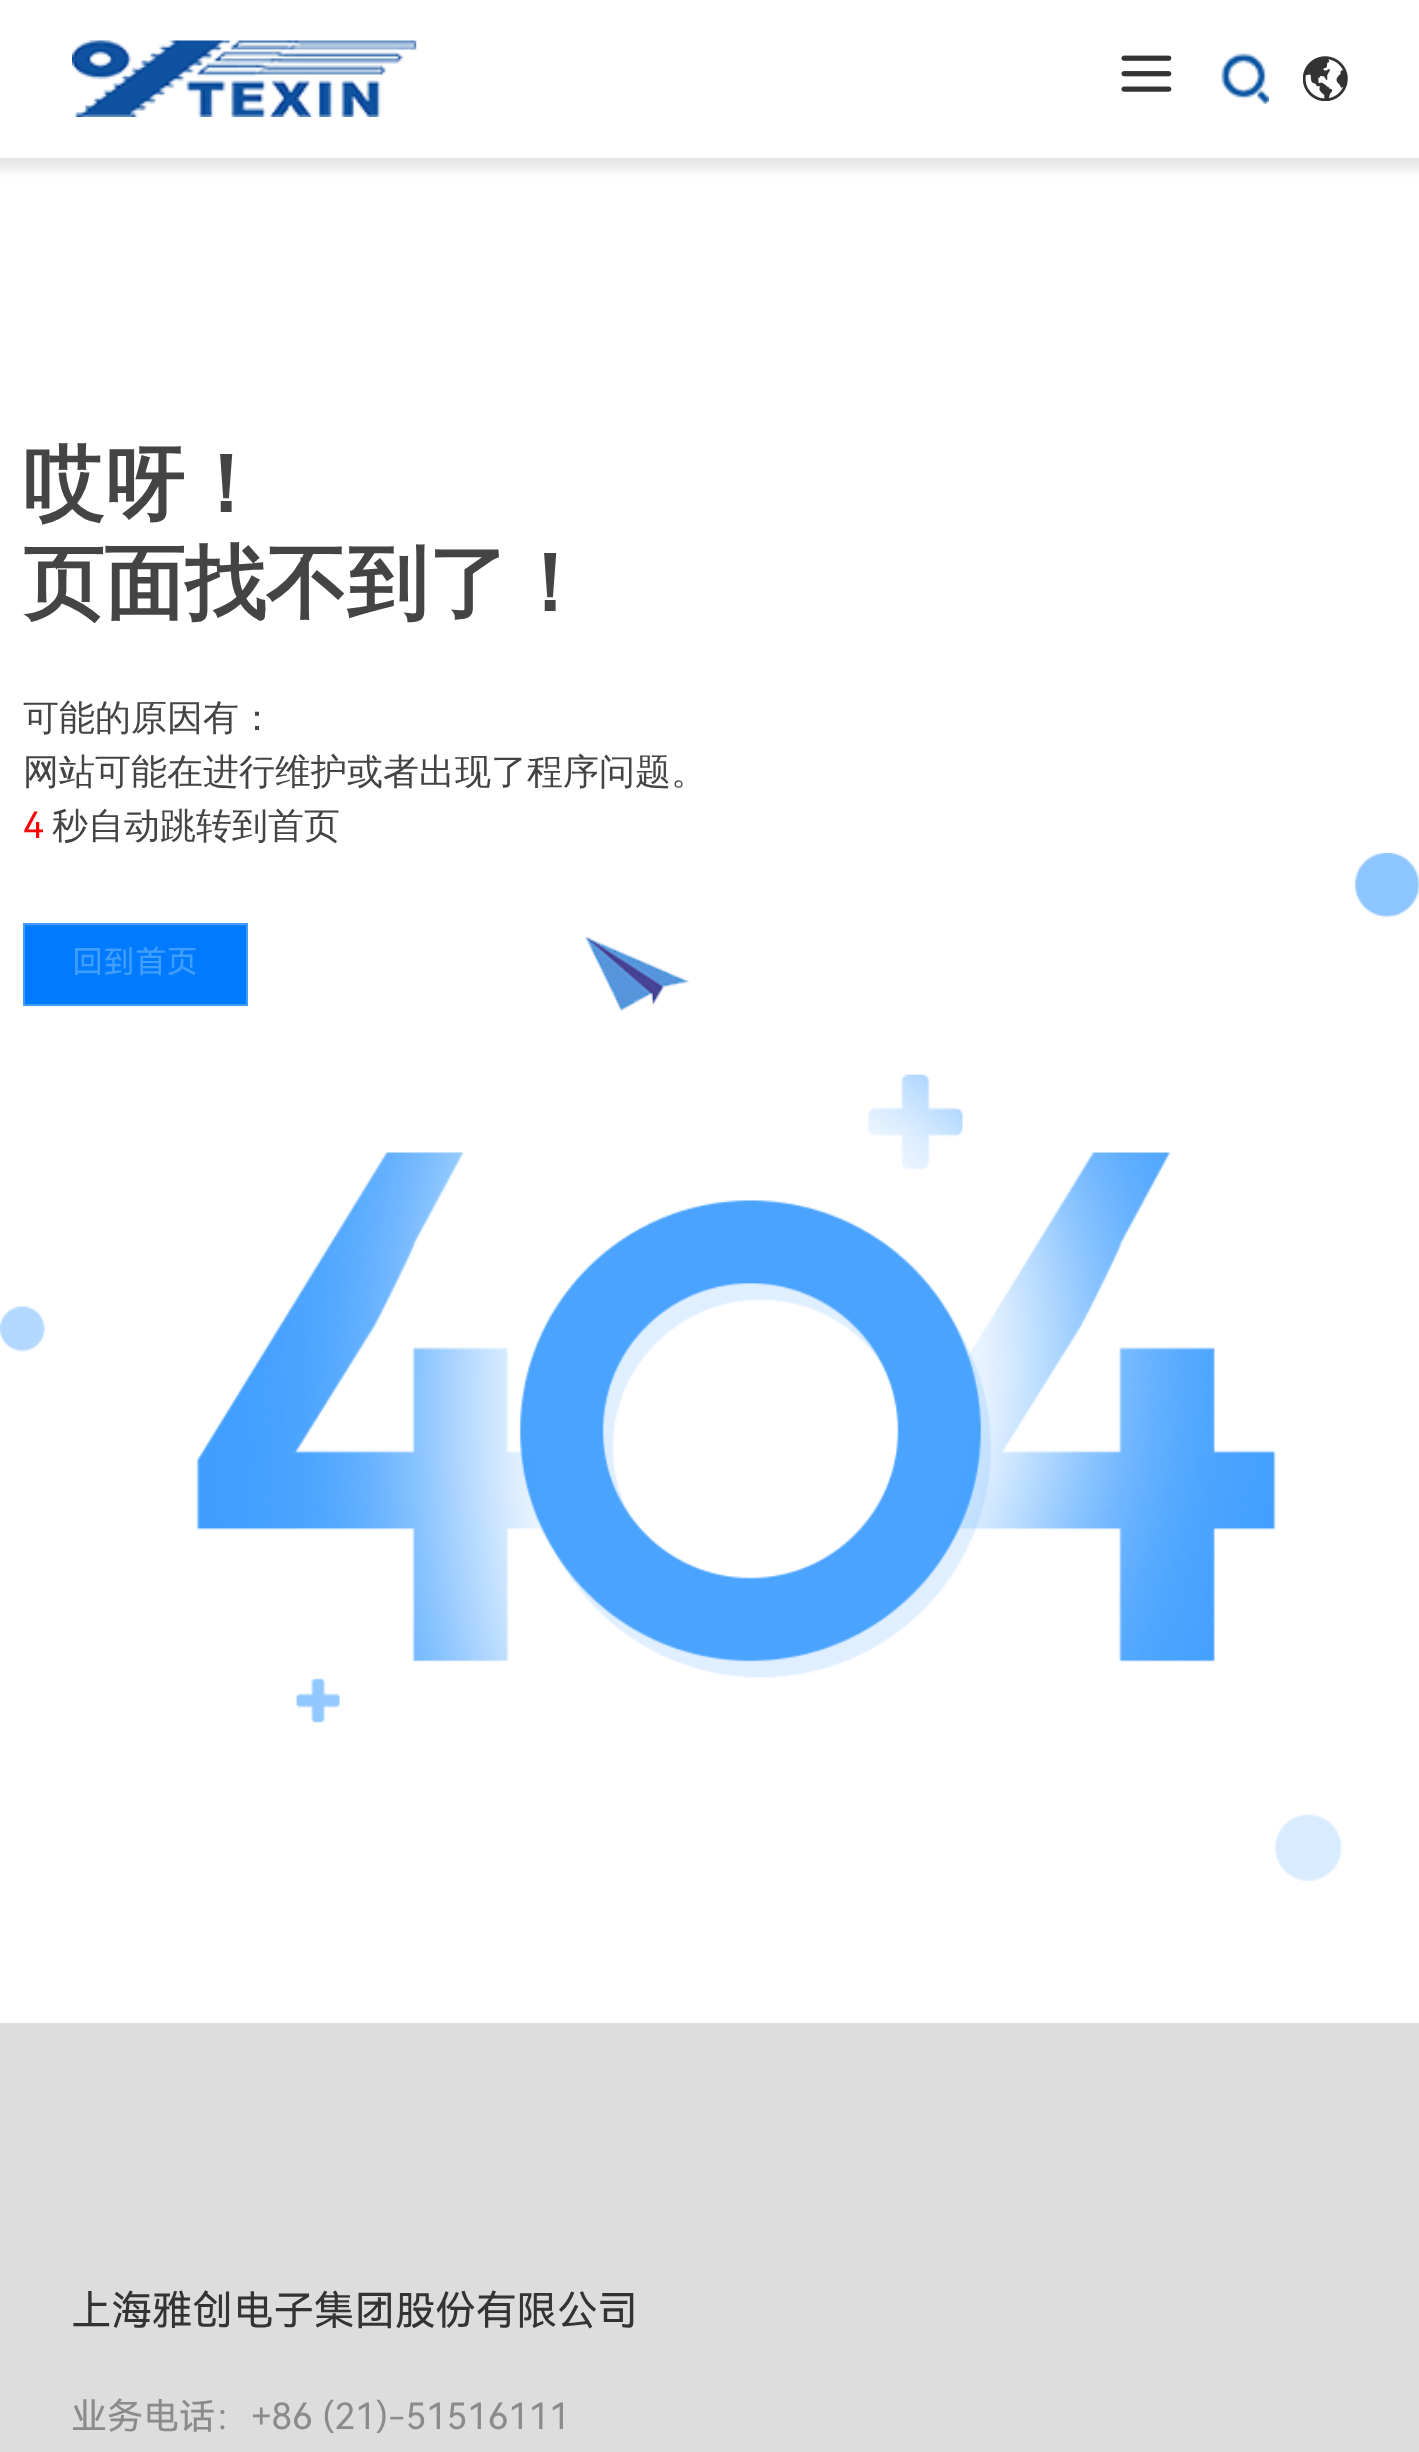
async function draw(canvas) {
  canvas.width = 1419
  canvas.height = 2452
  const ctx = canvas.getContext('2d')
  ctx.miterLimit = 4
  ctx.fontKerning = 'normal'
  async function loadImage(src) {
    const img = new Image()
    img.src = src
    await img.decode()
    return img
  }

  ctx.fillStyle = '#fff'
  ctx.fillRect(0, 0, 1419, 2452)
  ctx.fillStyle = '#0000001a'
  ctx.filter = 'blur(5.5px)'
  ctx.beginPath()
  ctx.rect(-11, -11, 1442, 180)
  ctx.fill()
  ctx.filter = 'none'
  ctx.fillStyle = '#fff'
  ctx.fillRect(0, 0, 1419, 158)
  ctx.drawImage(await loadImage('image0.png'), 72, 40, 345, 77)
  ctx.drawImage(await loadImage('image1.png'), 1121, 55, 51, 37)
  ctx.drawImage(await loadImage('image2.png'), 1221, 53, 48, 51)
  ctx.drawImage(await loadImage('image3.png'), 1303, 56, 45, 45)
  ctx.font = 'bold 81px WenQuanYi Zen Hei'
  ctx.fillStyle = '#444'
  ctx.fillText('哎呀！', 23, 512)
  ctx.fillText('页面找不到了！', 23, 611)
  ctx.font = '500 36px WenQuanYi Zen Hei'
  ctx.fillText('可能的原因有：', 23, 730)
  ctx.fillText('网站可能在进行维护或者出现了程序问题。', 23, 784)
  ctx.font = '36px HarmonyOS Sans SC'
  ctx.fillStyle = '#f00'
  ctx.fillText('4', 23, 838)
  ctx.font = '500 36px WenQuanYi Zen Hei'
  ctx.fillStyle = '#444'
  ctx.fillText('秒自动跳转到首页', 52, 838)
  ctx.drawImage(await loadImage('image4.png'), 0, 852, 1419, 1029)
  ctx.fillStyle = '#007bff'
  ctx.beginPath()
  ctx.rect(24, 924, 223, 81)
  ctx.fill()
  ctx.strokeStyle = '#409eff'
  ctx.lineWidth = 2
  ctx.stroke()
  ctx.font = '31.5px HarmonyOS Sans SC'
  ctx.fillStyle = '#409eff'
  ctx.fillText('回到首页', 72, 973)
  ctx.fillStyle = '#ddd'
  ctx.fillRect(0, 2023, 1419, 429)
  ctx.font = '40.5px HarmonyOS Sans SC'
  ctx.fillStyle = '#333'
  ctx.fillText('上海雅创电子集团股份有限公司', 71, 2325)
  ctx.font = '36px HarmonyOS Sans SC'
  ctx.fillStyle = '#8b8b8b'
  ctx.fillText('业务电话：+86 (21)-51516111', 71, 2429)
}

draw(document.querySelector('canvas'))
